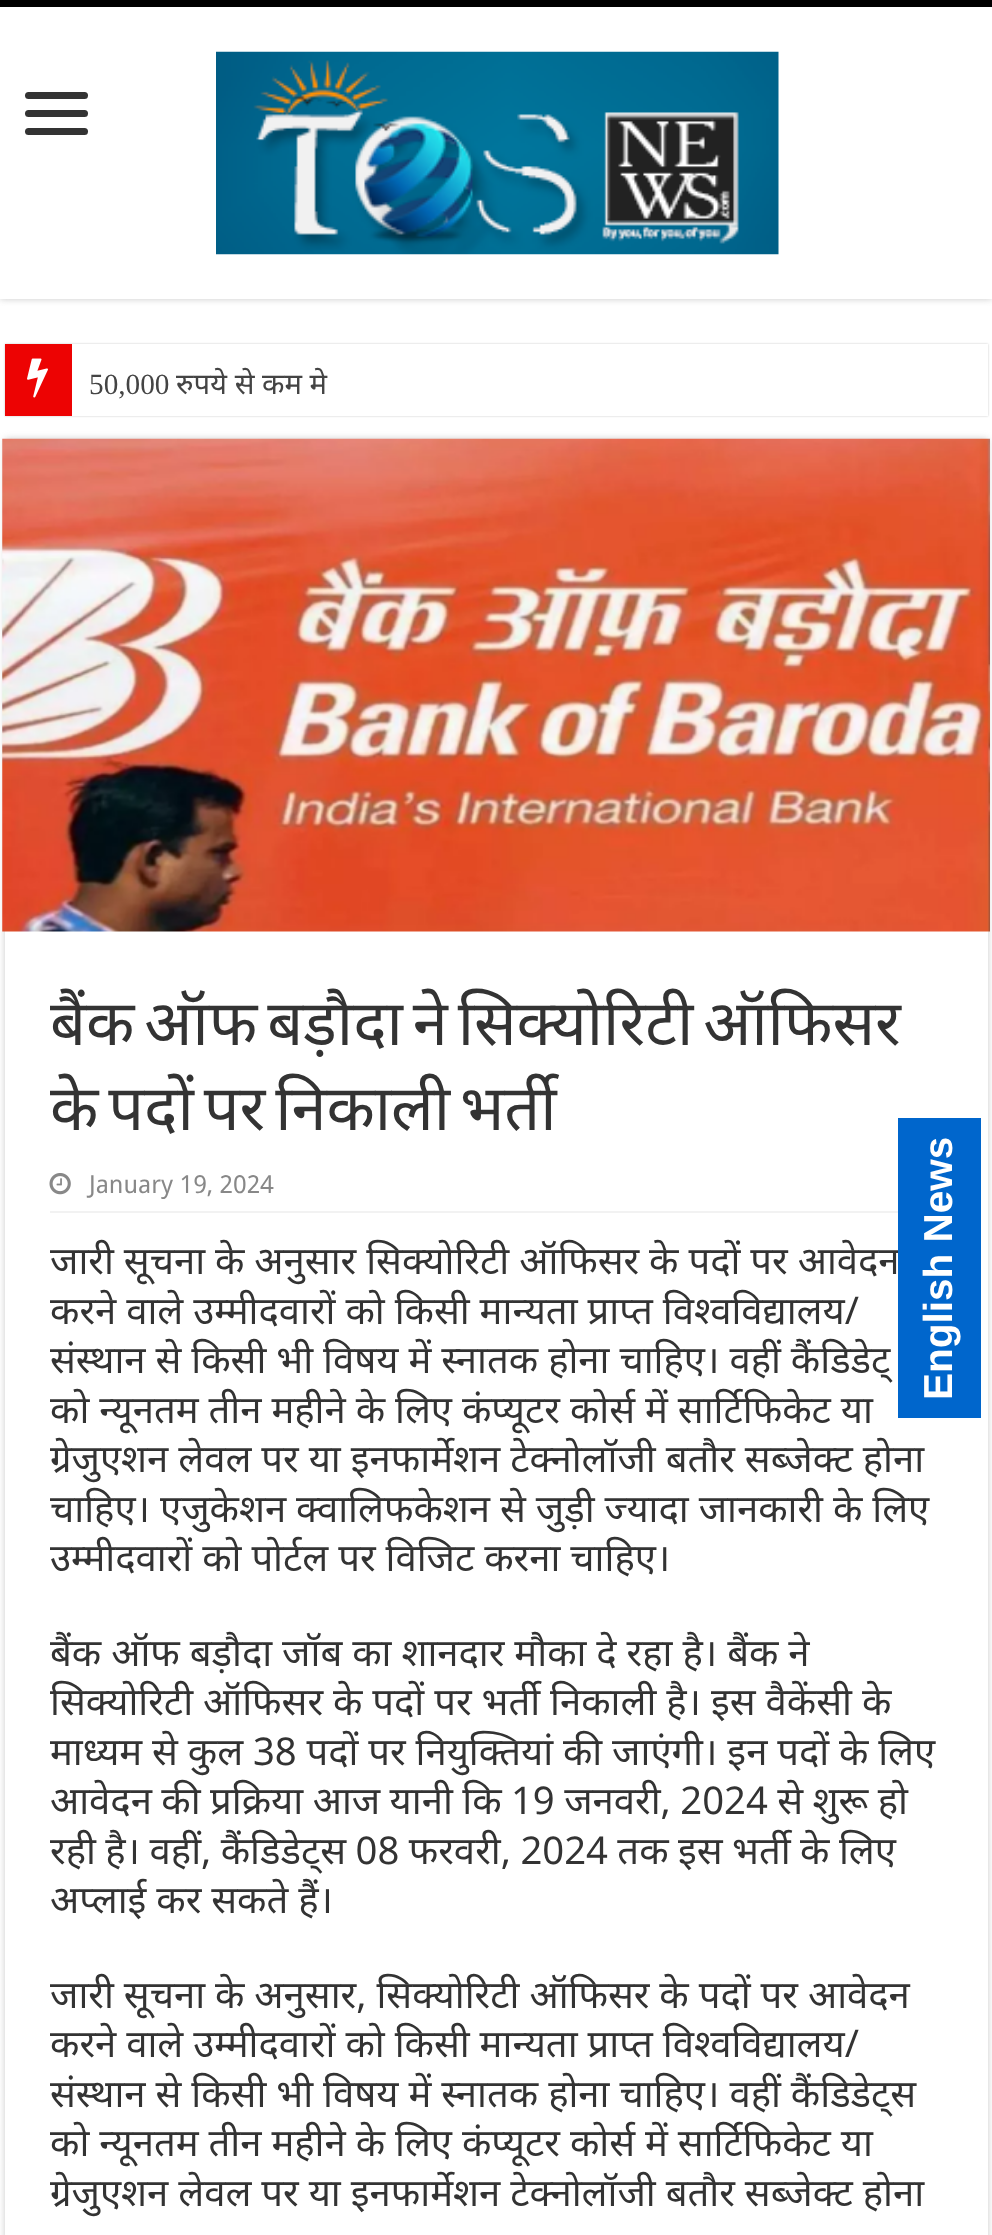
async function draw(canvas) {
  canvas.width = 992
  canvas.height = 2235
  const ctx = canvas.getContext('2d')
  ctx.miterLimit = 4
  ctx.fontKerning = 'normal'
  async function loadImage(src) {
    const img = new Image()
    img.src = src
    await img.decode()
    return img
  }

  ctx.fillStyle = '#fff'
  ctx.fillRect(0, 0, 992, 2235)
  ctx.save()
  ctx.beginPath()
  ctx.rect(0, 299, 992, 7)
  ctx.clip()
  ctx.fillStyle = '#cacaca'
  ctx.filter = 'blur(3.5px)'
  ctx.beginPath()
  ctx.rect(0, 0, 992, 299)
  ctx.fill()
  ctx.filter = 'none'
  ctx.restore()
  ctx.fillStyle = '#000'
  ctx.fillRect(0, 0, 992, 7)
  ctx.fillStyle = '#333'
  ctx.beginPath()
  ctx.roundRect(25, 92, 63, 7, 3.5)
  ctx.fill()
  ctx.beginPath()
  ctx.roundRect(25, 110, 63, 7, 3.5)
  ctx.fill()
  ctx.beginPath()
  ctx.roundRect(25, 128, 63, 7, 3.5)
  ctx.fill()
  ctx.drawImage(await loadImage('image0.png'), 216, 51, 563, 204)
  ctx.fillStyle = '#cacaca'
  ctx.filter = 'blur(1px)'
  ctx.beginPath()
  ctx.rect(5, 344, 983, 72)
  ctx.fill()
  ctx.filter = 'none'
  ctx.fillStyle = '#fff'
  ctx.fillRect(72, 344, 916, 72)
  ctx.fillStyle = '#ed0303'
  ctx.fillRect(5, 344, 67, 72)
  ctx.drawImage(await loadImage('image1.png'), 27, 358, 21, 40)
  ctx.font = '29.25px Liberation Serif'
  ctx.fillStyle = '#444'
  ctx.fillText('50,000', 89, 394)
  ctx.font = '29.25px Noto Sans'
  ctx.fillText('रुपये से कम मे', 176, 394)
  ctx.fillStyle = '#cacaca'
  ctx.filter = 'blur(3.5px)'
  ctx.beginPath()
  ctx.rect(5, 439, 983, 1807)
  ctx.fill()
  ctx.filter = 'none'
  ctx.fillStyle = '#fff'
  ctx.fillRect(5, 931, 983, 1304)
  ctx.drawImage(await loadImage('image2.png'), 2, 438, 988, 494)
  ctx.wordSpacing = '-6.5px'
  ctx.font = '63px Noto Sans'
  ctx.fillStyle = '#333'
  ctx.fillText('बैंक ऑफ बड़ौदा ने सिक्योरिटी ऑफिसर', 50, 1045)
  ctx.fillText('के पदों पर निकाली भर्ती', 50, 1130)
  ctx.fillStyle = '#f2f2f2'
  ctx.fillRect(50, 1211, 848, 2)
  ctx.drawImage(await loadImage('image3.png'), 49, 1173, 22, 22)
  ctx.wordSpacing = '0px'
  ctx.font = '24.75px Droid Sans'
  ctx.fillStyle = '#888'
  ctx.fillText('January 19, 2024', 89, 1193)
  ctx.font = '38.25px Noto Sans'
  ctx.fillStyle = '#333'
  ctx.fillText('जारी सूचना के अनुसार सिक्योरिटी ऑफिसर के पदों पर आवेदन', 50, 1274)
  ctx.fillText('करने वाले उम्मीदवारों को किसी मान्यता प्राप्त विश्वविद्यालय/', 50, 1324)
  ctx.fillText('संस्थान से किसी भी विषय में स्नातक होना चाहिए। वहीं कैंडिडेट्', 50, 1373)
  ctx.fillText('को न्यूनतम तीन महीने के लिए कंप्यूटर कोर्स में सार्टिफिकेट या', 50, 1423)
  ctx.fillText('ग्रेजुएशन लेवल पर या इनफार्मेशन टेक्नोलॉजी बतौर सब्जेक्ट होना', 50, 1472)
  ctx.fillText('चाहिए। एजुकेशन क्वालिफकेशन से जुड़ी ज्यादा जानकारी के लिए', 50, 1522)
  ctx.fillText('उम्मीदवारों को पोर्टल पर विजिट करना चाहिए।', 50, 1571)
  ctx.fillText('बैंक ऑफ बड़ौदा जॉब का शानदार मौका दे रहा है। बैंक ने', 50, 1666)
  ctx.fillText('सिक्योरिटी ऑफिसर के पदों पर भर्ती निकाली है। इस वैकेंसी के', 50, 1715)
  ctx.wordSpacing = '-0.1px'
  ctx.fillText('माध्यम से कुल 38 पदों पर नियुक्तियां की जाएंगी। इन पदों के लिए', 50, 1765)
  ctx.wordSpacing = '-0.5px'
  ctx.fillText('आवेदन की प्रक्रिया आज यानी कि 19 जनवरी, 2024 से शुरू हो', 50, 1814)
  ctx.fillText('रही है। वहीं, कैंडिडेट्स 08 फरवरी, 2024 तक इस भर्ती के लिए', 50, 1864)
  ctx.wordSpacing = '0px'
  ctx.fillText('अप्लाई कर सकते हैं।', 50, 1913)
  ctx.fillText('जारी सूचना के अनुसार, सिक्योरिटी ऑफिसर के पदों पर आवेदन', 50, 2008)
  ctx.fillText('करने वाले उम्मीदवारों को किसी मान्यता प्राप्त विश्वविद्यालय/', 50, 2057)
  ctx.fillText('संस्थान से किसी भी विषय में स्नातक होना चाहिए। वहीं कैंडिडेट्स', 50, 2107)
  ctx.fillText('को न्यूनतम तीन महीने के लिए कंप्यूटर कोर्स में सार्टिफिकेट या', 50, 2156)
  ctx.fillText('ग्रेजुएशन लेवल पर या इनफार्मेशन टेक्नोलॉजी बतौर सब्जेक्ट होना', 50, 2206)
  ctx.fillStyle = '#06c'
  ctx.fillRect(898, 1118, 83, 300)
  ctx.font = 'bold 40.5px Liberation Sans'
  ctx.fillStyle = '#fff'
  ctx.save()
  ctx.translate(952, 1400)
  ctx.rotate(-90 * Math.PI / 180)
  ctx.fillText('English News', 0, 0)
  ctx.restore()
}

draw(document.querySelector('canvas'))
